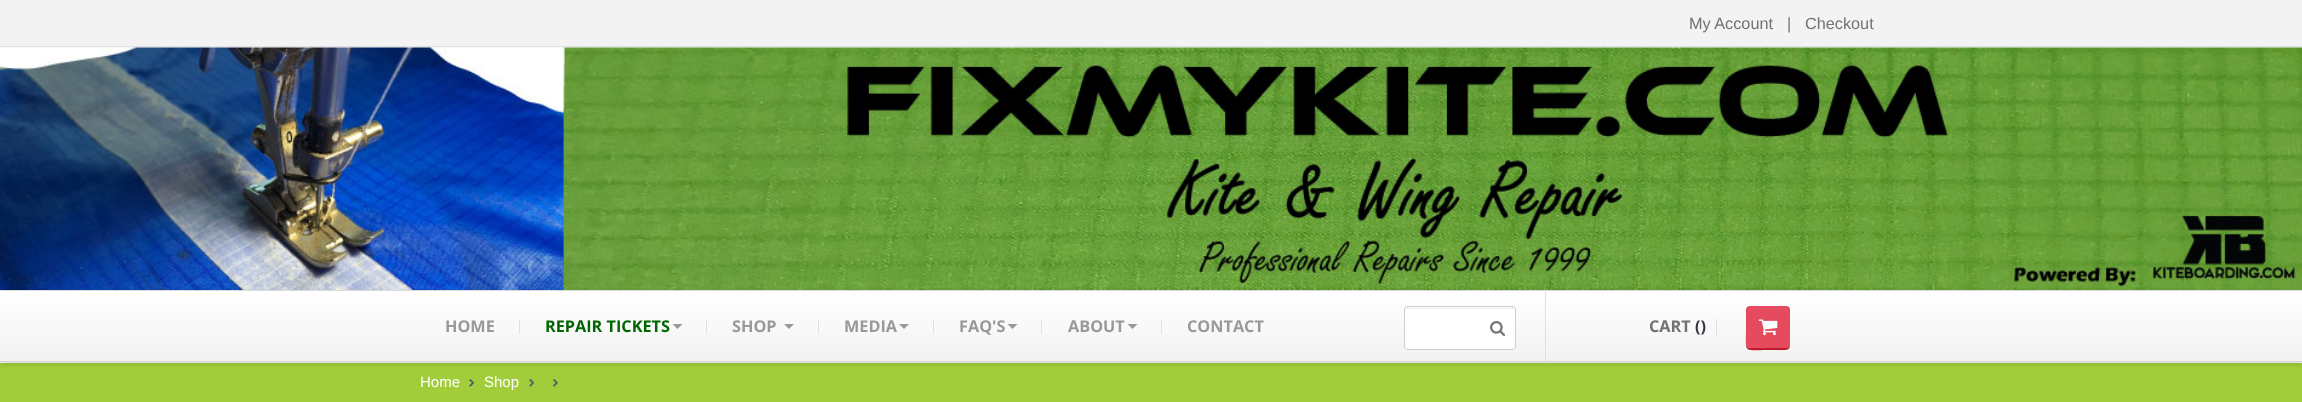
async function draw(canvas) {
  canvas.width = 2302
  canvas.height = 402
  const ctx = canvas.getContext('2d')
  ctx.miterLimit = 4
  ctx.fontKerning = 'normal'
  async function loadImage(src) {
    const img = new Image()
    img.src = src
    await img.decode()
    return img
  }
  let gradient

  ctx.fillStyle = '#fff'
  ctx.fillRect(0, 0, 2302, 402)
  ctx.fillStyle = '#e0e0e0'
  ctx.fillRect(0, 290, 2302, 1)
  ctx.fillStyle = '#f3f3f3'
  ctx.fillRect(0, 0, 2302, 48)
  ctx.fillStyle = '#e0e0e0'
  ctx.fillRect(0, 46, 2302, 1)
  ctx.font = '16.25px Liberation Sans'
  ctx.fillStyle = '#727272'
  ctx.fillText('My Account', 1689, 29)
  ctx.fillText('|', 1787, 29)
  ctx.fillText('Checkout', 1805, 29)
  ctx.drawImage(await loadImage('image0.png'), 0, 47, 2302, 243)
  ctx.fillStyle = '#a1cd3a'
  ctx.fillRect(0, 363, 2302, 39)
  ctx.fillStyle = '#00000026'
  ctx.filter = 'blur(2.5px)'
  ctx.beginPath()
  ctx.rect(0, 293, 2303, 71)
  ctx.fill()
  ctx.filter = 'none'
  gradient = ctx.createLinearGradient(1151, 291, 1151, 361)
  gradient.addColorStop(0, '#fff')
  gradient.addColorStop(1, '#f2f2f2')
  ctx.fillStyle = gradient
  ctx.fillRect(0, 291, 2302, 70)
  ctx.fillStyle = '#d4d4d4'
  ctx.fillRect(0, 361, 2302, 1)
  ctx.font = 'bold 16.25px Open Sans'
  ctx.fillStyle = '#999'
  ctx.fillText('HOME', 445, 332)
  ctx.fillStyle = '#e0e0e0'
  ctx.fillRect(519, 320, 1, 14)
  ctx.fillStyle = '#060'
  ctx.fillText('REPAIR TICKETS', 545, 332)
  ctx.fillStyle = '#999'
  ctx.beginPath()
  ctx.moveTo(672.5, 324)
  ctx.lineTo(682.5, 324)
  ctx.lineTo(677.5, 329)
  ctx.closePath()
  ctx.fill()
  ctx.fillStyle = '#e0e0e0'
  ctx.fillRect(706, 320, 1, 14)
  ctx.fillStyle = '#999'
  ctx.fillText('SHOP', 732, 332)
  ctx.beginPath()
  ctx.moveTo(784, 324)
  ctx.lineTo(794, 324)
  ctx.lineTo(789, 329)
  ctx.closePath()
  ctx.fill()
  ctx.fillStyle = '#e0e0e0'
  ctx.fillRect(818, 320, 1, 14)
  ctx.fillStyle = '#999'
  ctx.fillText('MEDIA', 844, 332)
  ctx.beginPath()
  ctx.moveTo(899, 324)
  ctx.lineTo(909, 324)
  ctx.lineTo(904, 329)
  ctx.closePath()
  ctx.fill()
  ctx.fillStyle = '#e0e0e0'
  ctx.fillRect(933, 320, 1, 14)
  ctx.fillStyle = '#999'
  ctx.fillText('FAQ\'S', 959, 332)
  ctx.beginPath()
  ctx.moveTo(1007.5, 324)
  ctx.lineTo(1017.5, 324)
  ctx.lineTo(1012.5, 329)
  ctx.closePath()
  ctx.fill()
  ctx.fillStyle = '#e0e0e0'
  ctx.fillRect(1041, 320, 1, 14)
  ctx.fillStyle = '#999'
  ctx.fillText('ABOUT', 1068, 332)
  ctx.beginPath()
  ctx.moveTo(1127.5, 324)
  ctx.lineTo(1137.5, 324)
  ctx.lineTo(1132.5, 329)
  ctx.closePath()
  ctx.fill()
  ctx.fillStyle = '#e0e0e0'
  ctx.fillRect(1161, 320, 1, 14)
  ctx.fillStyle = '#999'
  ctx.fillText('CONTACT', 1187, 332)
  ctx.fillStyle = '#fff'
  ctx.beginPath()
  ctx.roundRect(1404, 306, 112, 44, 4)
  ctx.fill()
  ctx.fillStyle = '#ececec'
  ctx.beginPath()
  ctx.moveTo(1408, 309)
  ctx.lineTo(1512, 309)
  ctx.bezierCurveTo(1514, 309, 1515, 310, 1515, 311)
  ctx.bezierCurveTo(1515, 309, 1514, 308, 1512, 308)
  ctx.lineTo(1407, 308)
  ctx.bezierCurveTo(1406, 308, 1405, 310, 1405, 311)
  ctx.bezierCurveTo(1405, 310, 1406, 309, 1408, 309)
  ctx.closePath()
  ctx.fill()
  ctx.beginPath()
  ctx.roundRect(1404.5, 306.5, 111, 43, 3.5)
  ctx.strokeStyle = '#ccc'
  ctx.stroke()
  ctx.drawImage(await loadImage('image1.png'), 1490, 321, 15, 15)
  ctx.fillStyle = '#e0e0e0'
  ctx.fillRect(1545, 291, 1, 70)
  ctx.fillRect(1716, 319, 1, 16)
  ctx.fillStyle = '#727272'
  ctx.fillText('CART', 1649, 332)
  ctx.fillStyle = '#34353e'
  ctx.fillText('()', 1695, 332)
  ctx.fillStyle = '#be1b2e'
  ctx.beginPath()
  ctx.moveTo(1746, 312)
  ctx.lineTo(1746, 330)
  ctx.bezierCurveTo(1746, 354, 1743, 350, 1768, 350)
  ctx.lineTo(1780, 350)
  ctx.bezierCurveTo(1787, 350, 1790, 351, 1790, 344)
  ctx.bezierCurveTo(1790, 346, 1788, 348, 1786, 348)
  ctx.lineTo(1750, 348)
  ctx.bezierCurveTo(1748, 348, 1746, 346, 1746, 344)
  ctx.closePath()
  ctx.fill()
  ctx.fillStyle = '#e54b5d'
  ctx.beginPath()
  ctx.roundRect(1746, 306, 44, 42, 4)
  ctx.fill()
  ctx.drawImage(await loadImage('image2.png'), 1758, 319, 20, 17)
  ctx.font = '15px Liberation Sans'
  ctx.fillStyle = '#fff'
  ctx.fillText('Home', 420, 387)
  ctx.drawImage(await loadImage('image3.png'), 469, 379, 5, 8)
  ctx.fillText('Shop', 484, 387)
  ctx.drawImage(await loadImage('image3.png'), 529, 379, 5, 8)
  ctx.drawImage(await loadImage('image4.png'), 553, 379, 5, 8)
}

draw(document.querySelector('canvas'))
